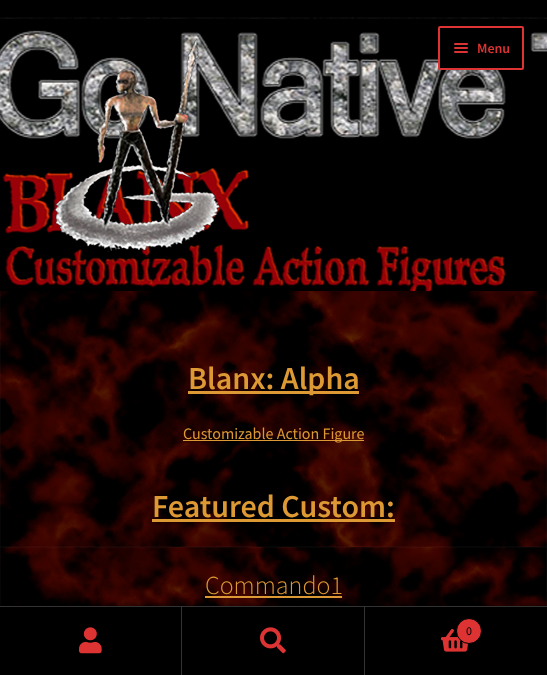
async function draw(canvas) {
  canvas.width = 547
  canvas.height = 675
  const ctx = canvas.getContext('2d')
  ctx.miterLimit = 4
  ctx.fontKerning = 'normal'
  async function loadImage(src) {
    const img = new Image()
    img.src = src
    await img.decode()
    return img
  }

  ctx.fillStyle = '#fff'
  ctx.fillRect(0, 0, 547, 675)
  ctx.drawImage(await loadImage('image0.png'), 0, 291, 547, 315)
  ctx.fillStyle = '#000'
  ctx.fillRect(0, 0, 547, 291)
  ctx.drawImage(await loadImage('image1.png'), 0, 17, 547, 274)
  ctx.drawImage(await loadImage('image2.png'), 55, 38, 166, 214)
  ctx.beginPath()
  ctx.roundRect(439, 27, 84, 42, 1)
  ctx.fill()
  ctx.strokeStyle = '#d33'
  ctx.lineWidth = 2
  ctx.stroke()
  ctx.fillStyle = '#d33'
  ctx.beginPath()
  ctx.roundRect(454, 43, 14, 2, 1)
  ctx.fill()
  ctx.beginPath()
  ctx.roundRect(454, 47, 14, 2, 1)
  ctx.fill()
  ctx.font = '600 14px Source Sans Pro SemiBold'
  ctx.fillText('Menu', 477, 53)
  ctx.beginPath()
  ctx.roundRect(454, 51, 14, 2, 1)
  ctx.fill()
  ctx.fillStyle = '#d93'
  ctx.fillRect(188, 391, 171, 3)
  ctx.font = '600 32px Source Sans Pro SemiBold'
  ctx.fillText('Blanx: Alpha', 188, 389)
  ctx.fillRect(183, 440, 181, 1)
  ctx.font = '16px Source Sans Pro'
  ctx.fillText('Customizable Action Figure', 183, 439)
  ctx.font = '600 32px Source Sans Pro SemiBold'
  ctx.fillText('Featured Custom:', 152, 517)
  ctx.fillRect(152, 519, 243, 3)
  ctx.fillStyle = '#0000000d'
  ctx.fillRect(23, 550, 419, 1)
  ctx.font = '300 26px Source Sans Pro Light'
  ctx.fillStyle = '#d93'
  ctx.fillText('Commando1', 205, 594)
  ctx.fillRect(205, 596, 137, 2)
  ctx.fillStyle = '#000000b3'
  ctx.filter = 'blur(3px)'
  ctx.beginPath()
  ctx.rect(0, 606, 547, 69)
  ctx.fill()
  ctx.filter = 'none'
  ctx.fillStyle = '#333'
  ctx.fillRect(0, 606, 547, 1)
  ctx.fillStyle = '#000'
  ctx.fillRect(0, 607, 181, 68)
  ctx.fillStyle = '#333'
  ctx.fillRect(181, 607, 1, 68)
  ctx.drawImage(await loadImage('image3.png'), 79, 627, 23, 27)
  ctx.fillStyle = '#000'
  ctx.fillRect(182, 607, 182, 68)
  ctx.fillStyle = '#333'
  ctx.fillRect(364, 607, 1, 68)
  ctx.drawImage(await loadImage('image4.png'), 260, 627, 26, 27)
  ctx.fillStyle = '#000'
  ctx.fillRect(365, 607, 182, 68)
  ctx.drawImage(await loadImage('image5.png'), 441, 629, 28, 23)
  ctx.fillStyle = '#d33'
  ctx.beginPath()
  ctx.arc(469, 631, 12.5, 0, 2 * Math.PI)
  ctx.fill()
  ctx.strokeStyle = '#000'
  ctx.lineWidth = 1
  ctx.stroke()
  ctx.font = '12px Source Sans Pro'
  ctx.fillStyle = '#000'
  ctx.fillText('0', 466, 635)
}

draw(document.querySelector('canvas'))
